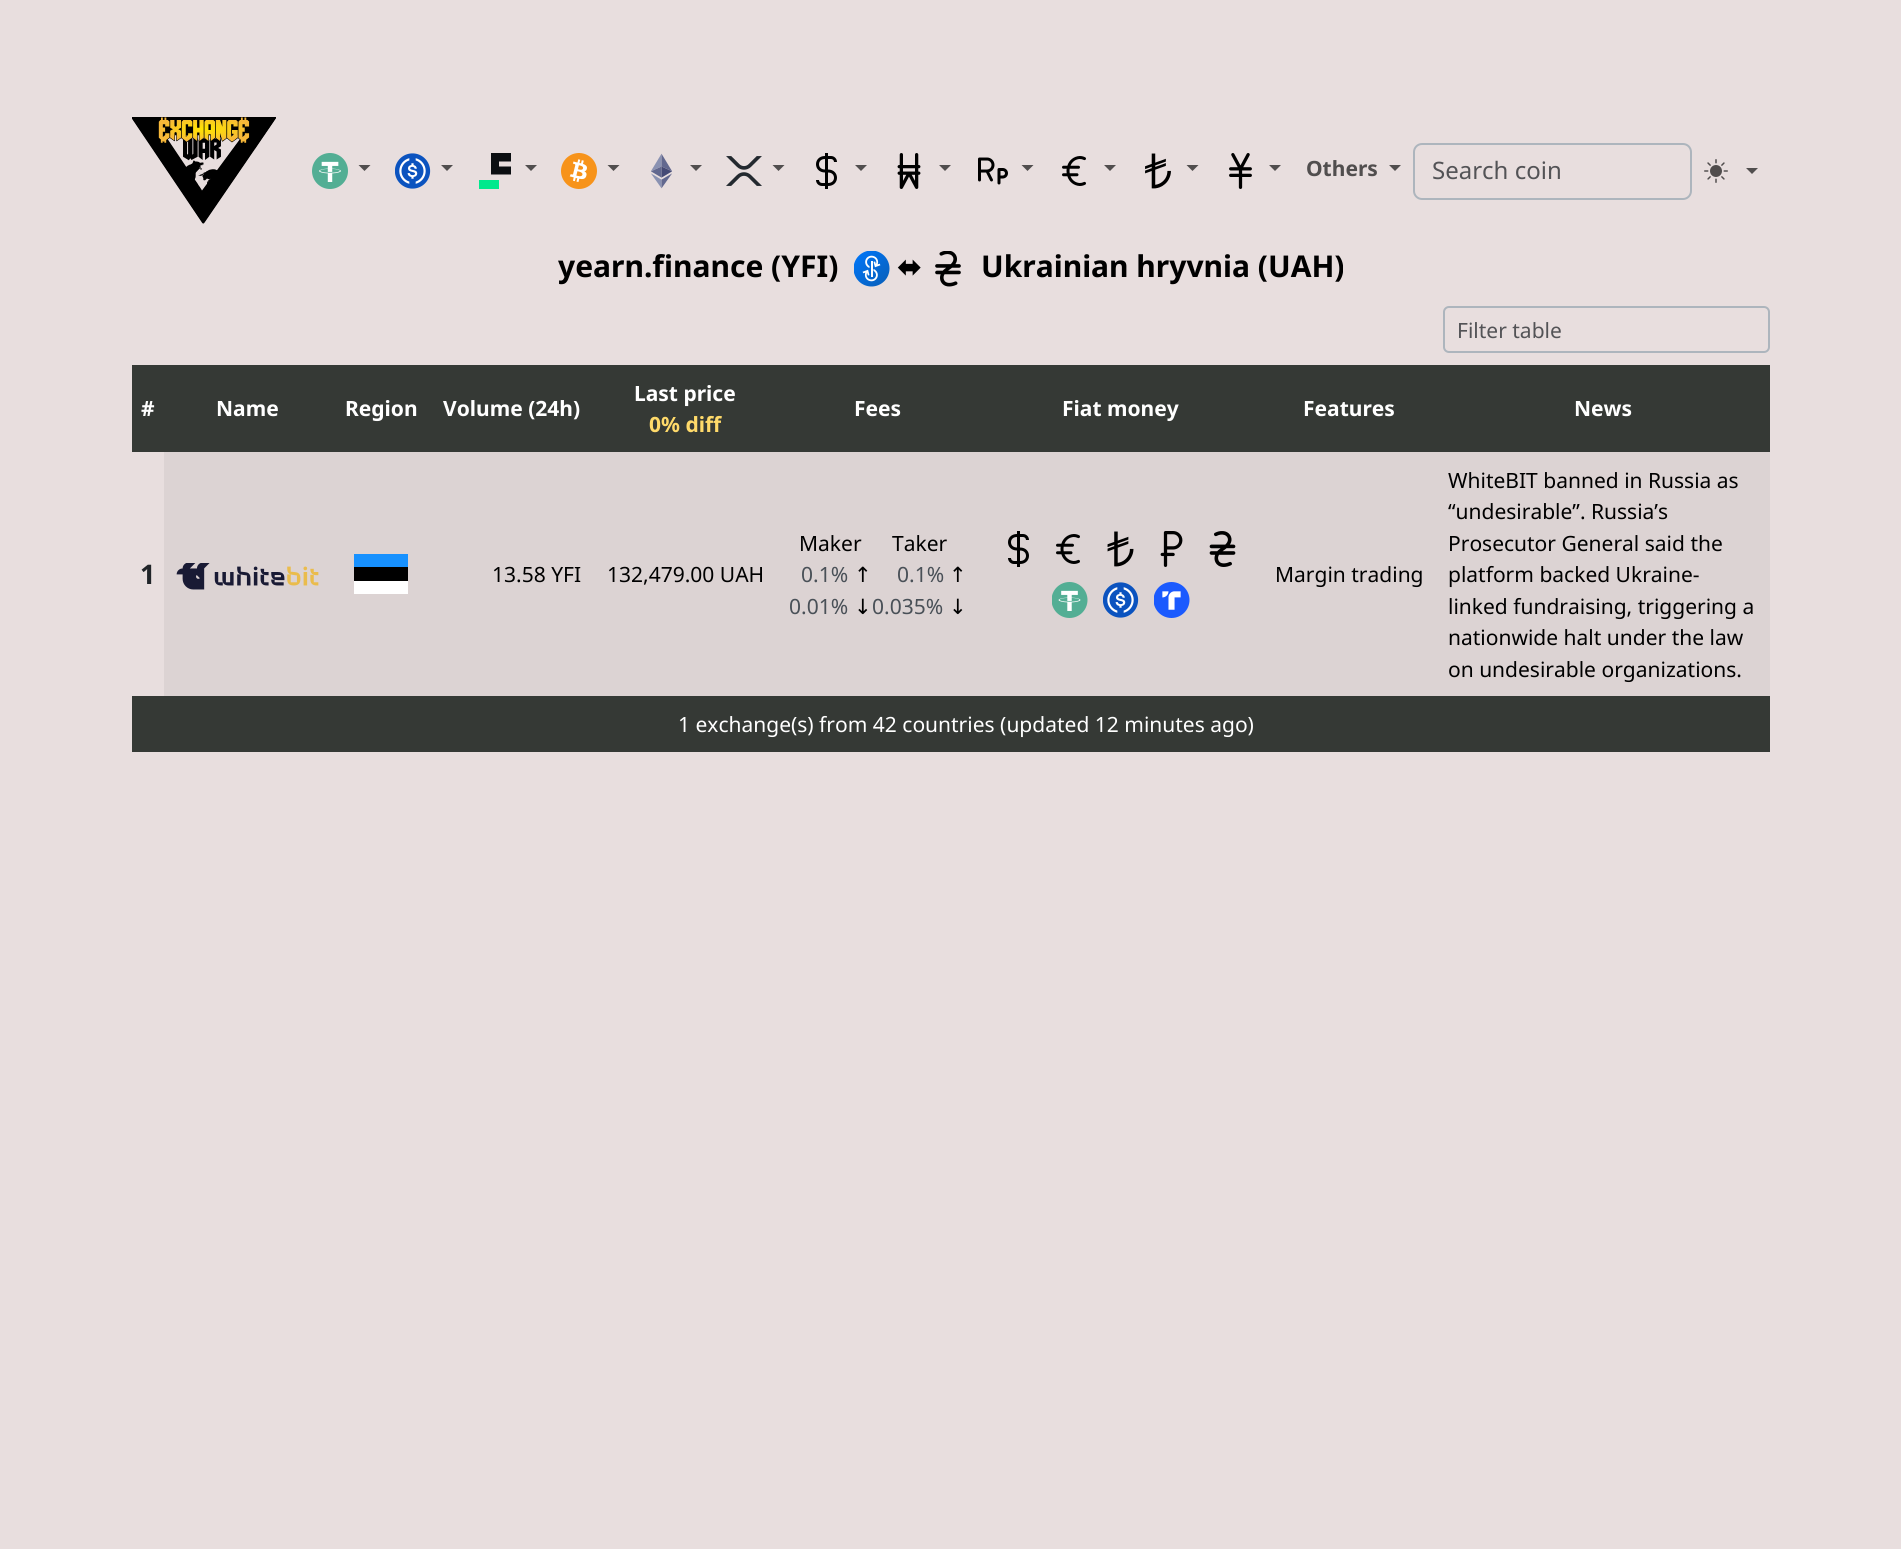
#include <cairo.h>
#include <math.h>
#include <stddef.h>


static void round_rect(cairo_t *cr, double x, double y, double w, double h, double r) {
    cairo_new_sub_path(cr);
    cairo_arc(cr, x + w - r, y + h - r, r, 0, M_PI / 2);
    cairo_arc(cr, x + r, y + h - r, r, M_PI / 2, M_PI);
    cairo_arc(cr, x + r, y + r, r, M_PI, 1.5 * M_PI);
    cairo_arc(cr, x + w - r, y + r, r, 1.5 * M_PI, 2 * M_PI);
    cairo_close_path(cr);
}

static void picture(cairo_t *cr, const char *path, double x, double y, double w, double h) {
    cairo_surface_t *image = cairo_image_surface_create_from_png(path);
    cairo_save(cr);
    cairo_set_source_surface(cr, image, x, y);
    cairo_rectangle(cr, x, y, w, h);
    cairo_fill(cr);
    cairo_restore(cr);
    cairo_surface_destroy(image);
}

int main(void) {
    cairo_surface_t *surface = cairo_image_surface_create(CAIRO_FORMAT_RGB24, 1901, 1549);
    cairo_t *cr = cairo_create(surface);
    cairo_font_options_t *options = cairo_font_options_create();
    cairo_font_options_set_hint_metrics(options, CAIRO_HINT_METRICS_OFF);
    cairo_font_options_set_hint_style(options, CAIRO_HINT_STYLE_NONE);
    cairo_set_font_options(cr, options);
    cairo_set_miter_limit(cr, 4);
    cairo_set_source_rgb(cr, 0.91, 0.871, 0.871);
    cairo_paint(cr);
    picture(cr, "img1.png", 132, 117, 144, 107);
    picture(cr, "img2.png", 312, 153, 36, 36);
    cairo_set_source_rgb(cr, 0.318, 0.306, 0.306);
    cairo_new_path(cr);
    cairo_move_to(cr, 358.5, 165);
    cairo_line_to(cr, 370.5, 165);
    cairo_line_to(cr, 364.5, 171);
    cairo_close_path(cr);
    cairo_fill(cr);
    picture(cr, "img3.png", 395, 153, 36, 36);
    cairo_new_path(cr);
    cairo_move_to(cr, 441, 165);
    cairo_line_to(cr, 453, 165);
    cairo_line_to(cr, 447, 171);
    cairo_close_path(cr);
    cairo_fill(cr);
    cairo_set_source_rgb(cr, 0.043, 0.055, 0.067);
    cairo_new_path(cr);
    cairo_move_to(cr, 511, 153);
    cairo_line_to(cr, 511, 161.5);
    cairo_line_to(cr, 499, 161.5);
    cairo_line_to(cr, 499, 166.5);
    cairo_line_to(cr, 511, 166.5);
    cairo_line_to(cr, 511, 174.5);
    cairo_line_to(cr, 491, 174.5);
    cairo_line_to(cr, 491, 153);
    cairo_close_path(cr);
    cairo_fill(cr);
    cairo_set_source_rgb(cr, 0.318, 0.306, 0.306);
    cairo_new_path(cr);
    cairo_move_to(cr, 525, 165);
    cairo_line_to(cr, 537, 165);
    cairo_line_to(cr, 531, 171);
    cairo_close_path(cr);
    cairo_fill(cr);
    cairo_set_source_rgb(cr, 0, 0.914, 0.553);
    cairo_rectangle(cr, 479, 180, 20, 9);
    cairo_fill(cr);
    picture(cr, "img4.png", 561, 153, 36, 36);
    cairo_set_source_rgb(cr, 0.318, 0.306, 0.306);
    cairo_new_path(cr);
    cairo_move_to(cr, 607.5, 165);
    cairo_line_to(cr, 619.5, 165);
    cairo_line_to(cr, 613.5, 171);
    cairo_close_path(cr);
    cairo_fill(cr);
    picture(cr, "img5.png", 651, 153, 21, 36);
    cairo_new_path(cr);
    cairo_move_to(cr, 690, 165);
    cairo_line_to(cr, 702, 165);
    cairo_line_to(cr, 696, 171);
    cairo_close_path(cr);
    cairo_fill(cr);
    picture(cr, "img6.png", 726, 156, 36, 30);
    cairo_new_path(cr);
    cairo_move_to(cr, 772.5, 165);
    cairo_line_to(cr, 784.5, 165);
    cairo_line_to(cr, 778.5, 171);
    cairo_close_path(cr);
    cairo_fill(cr);
    picture(cr, "img7.png", 816, 153, 21, 36);
    cairo_new_path(cr);
    cairo_move_to(cr, 855, 165);
    cairo_line_to(cr, 867, 165);
    cairo_line_to(cr, 861, 171);
    cairo_close_path(cr);
    cairo_fill(cr);
    picture(cr, "img8.png", 897, 153, 24, 36);
    cairo_new_path(cr);
    cairo_move_to(cr, 939, 165);
    cairo_line_to(cr, 951, 165);
    cairo_line_to(cr, 945, 171);
    cairo_close_path(cr);
    cairo_fill(cr);
    picture(cr, "img9.png", 978, 157, 30, 28);
    cairo_new_path(cr);
    cairo_move_to(cr, 1021.5, 165);
    cairo_line_to(cr, 1033.5, 165);
    cairo_line_to(cr, 1027.5, 171);
    cairo_close_path(cr);
    cairo_fill(cr);
    picture(cr, "img10.png", 1062, 156, 24, 30);
    cairo_new_path(cr);
    cairo_move_to(cr, 1104, 165);
    cairo_line_to(cr, 1116, 165);
    cairo_line_to(cr, 1110, 171);
    cairo_close_path(cr);
    cairo_fill(cr);
    picture(cr, "img11.png", 1145, 153, 26, 36);
    cairo_new_path(cr);
    cairo_move_to(cr, 1186.5, 165);
    cairo_line_to(cr, 1198.5, 165);
    cairo_line_to(cr, 1192.5, 171);
    cairo_close_path(cr);
    cairo_fill(cr);
    picture(cr, "img12.png", 1229, 153, 23, 36);
    cairo_new_path(cr);
    cairo_move_to(cr, 1269, 165);
    cairo_line_to(cr, 1281, 165);
    cairo_line_to(cr, 1275, 171);
    cairo_close_path(cr);
    cairo_fill(cr);
    cairo_select_font_face(cr, "Noto Sans", CAIRO_FONT_SLANT_NORMAL, CAIRO_FONT_WEIGHT_BOLD);
    cairo_set_font_size(cr, 21);
    cairo_move_to(cr, 1306, 176);
    cairo_show_text(cr, "Others");
    cairo_new_path(cr);
    cairo_move_to(cr, 1389, 165);
    cairo_line_to(cr, 1401, 165);
    cairo_line_to(cr, 1395, 171);
    cairo_close_path(cr);
    cairo_fill(cr);
    round_rect(cr, 1414, 144, 277, 55, 8);
    cairo_set_source_rgb(cr, 0.678, 0.71, 0.741);
    cairo_stroke(cr);
    cairo_select_font_face(cr, "Noto Sans", CAIRO_FONT_SLANT_NORMAL, CAIRO_FONT_WEIGHT_NORMAL);
    cairo_set_font_size(cr, 24);
    cairo_set_source_rgb(cr, 0.325, 0.325, 0.337);
    cairo_move_to(cr, 1432, 179);
    cairo_show_text(cr, "Search coin");
    picture(cr, "img13.png", 1704, 159, 24, 24);
    cairo_set_source_rgb(cr, 0.318, 0.306, 0.306);
    cairo_new_path(cr);
    cairo_move_to(cr, 1746, 168);
    cairo_line_to(cr, 1758, 168);
    cairo_line_to(cr, 1752, 174);
    cairo_close_path(cr);
    cairo_fill(cr);
    cairo_select_font_face(cr, "Noto Sans", CAIRO_FONT_SLANT_NORMAL, CAIRO_FONT_WEIGHT_BOLD);
    cairo_set_font_size(cr, 30);
    cairo_set_source_rgb(cr, 0, 0, 0);
    cairo_move_to(cr, 558, 277);
    cairo_show_text(cr, "yearn.finance (YFI)");
    picture(cr, "img14.png", 854, 251, 36, 36);
    cairo_select_font_face(cr, "DejaVu Sans", CAIRO_FONT_SLANT_NORMAL, CAIRO_FONT_WEIGHT_BOLD);
    cairo_move_to(cr, 897, 277);
    cairo_show_text(cr, "⬌");
    picture(cr, "img15.png", 935, 251, 26, 36);
    cairo_select_font_face(cr, "Noto Sans", CAIRO_FONT_SLANT_NORMAL, CAIRO_FONT_WEIGHT_BOLD);
    cairo_move_to(cr, 981, 277);
    cairo_show_text(cr, "Ukrainian hryvnia (UAH)");
    round_rect(cr, 1444, 307, 325, 45, 5);
    cairo_set_source_rgb(cr, 0.678, 0.71, 0.741);
    cairo_stroke(cr);
    cairo_select_font_face(cr, "Noto Sans", CAIRO_FONT_SLANT_NORMAL, CAIRO_FONT_WEIGHT_NORMAL);
    cairo_set_font_size(cr, 21);
    cairo_set_source_rgb(cr, 0.325, 0.325, 0.337);
    cairo_move_to(cr, 1457, 338);
    cairo_show_text(cr, "Filter table");
    cairo_set_source_rgb(cr, 0.208, 0.224, 0.208);
    cairo_rectangle(cr, 132, 365, 1638, 87);
    cairo_fill(cr);
    cairo_select_font_face(cr, "Noto Sans", CAIRO_FONT_SLANT_NORMAL, CAIRO_FONT_WEIGHT_BOLD);
    cairo_set_source_rgb(cr, 1, 1, 1);
    cairo_move_to(cr, 141, 416);
    cairo_show_text(cr, "#");
    cairo_move_to(cr, 216, 416);
    cairo_show_text(cr, "Name");
    cairo_move_to(cr, 345, 416);
    cairo_show_text(cr, "Region");
    cairo_move_to(cr, 443, 416);
    cairo_show_text(cr, "Volume (24h)");
    cairo_move_to(cr, 634, 401);
    cairo_show_text(cr, "Last price");
    cairo_set_source_rgb(cr, 1, 0.855, 0.416);
    cairo_move_to(cr, 649, 432);
    cairo_show_text(cr, "0% diff");
    cairo_set_source_rgb(cr, 1, 1, 1);
    cairo_move_to(cr, 854, 416);
    cairo_show_text(cr, "Fees");
    cairo_move_to(cr, 1062, 416);
    cairo_show_text(cr, "Fiat money");
    cairo_move_to(cr, 1303, 416);
    cairo_show_text(cr, "Features");
    cairo_move_to(cr, 1574, 416);
    cairo_show_text(cr, "News");
    cairo_set_source_rgb(cr, 0.863, 0.827, 0.827);
    cairo_rectangle(cr, 164, 452, 1606, 244);
    cairo_fill(cr);
    picture(cr, "img16.png", 176, 563, 143, 27);
    cairo_set_font_size(cr, 27);
    cairo_set_source_rgb(cr, 0.129, 0.145, 0.161);
    cairo_move_to(cr, 140, 584);
    cairo_show_text(cr, "1");
    cairo_set_source_rgb(cr, 0.09, 0.569, 1);
    cairo_rectangle(cr, 354, 554, 54, 13);
    cairo_fill(cr);
    cairo_set_source_rgb(cr, 0, 0, 0);
    cairo_rectangle(cr, 354, 567, 54, 14);
    cairo_fill(cr);
    cairo_set_source_rgb(cr, 1, 1, 1);
    cairo_rectangle(cr, 354, 581, 54, 13);
    cairo_fill(cr);
    cairo_select_font_face(cr, "Noto Sans", CAIRO_FONT_SLANT_NORMAL, CAIRO_FONT_WEIGHT_NORMAL);
    cairo_set_font_size(cr, 21);
    cairo_set_source_rgb(cr, 0, 0, 0);
    cairo_move_to(cr, 492, 582);
    cairo_show_text(cr, "13.58 YFI");
    cairo_move_to(cr, 607, 582);
    cairo_show_text(cr, "132,479.00 UAH");
    cairo_move_to(cr, 799, 551);
    cairo_show_text(cr, "Maker");
    cairo_set_source_rgb(cr, 0.286, 0.314, 0.341);
    cairo_move_to(cr, 801, 582);
    cairo_show_text(cr, "0.1%");
    cairo_select_font_face(cr, "DejaVu Sans", CAIRO_FONT_SLANT_NORMAL, CAIRO_FONT_WEIGHT_NORMAL);
    cairo_set_source_rgb(cr, 0, 0, 0);
    cairo_move_to(cr, 854, 582);
    cairo_show_text(cr, "↑");
    cairo_select_font_face(cr, "Noto Sans", CAIRO_FONT_SLANT_NORMAL, CAIRO_FONT_WEIGHT_NORMAL);
    cairo_set_source_rgb(cr, 0.286, 0.314, 0.341);
    cairo_move_to(cr, 789, 614);
    cairo_show_text(cr, "0.01%");
    cairo_select_font_face(cr, "DejaVu Sans", CAIRO_FONT_SLANT_NORMAL, CAIRO_FONT_WEIGHT_NORMAL);
    cairo_set_source_rgb(cr, 0, 0, 0);
    cairo_move_to(cr, 854, 614);
    cairo_show_text(cr, "↓");
    cairo_select_font_face(cr, "Noto Sans", CAIRO_FONT_SLANT_NORMAL, CAIRO_FONT_WEIGHT_NORMAL);
    cairo_move_to(cr, 892, 551);
    cairo_show_text(cr, "Taker");
    cairo_set_source_rgb(cr, 0.286, 0.314, 0.341);
    cairo_move_to(cr, 897, 582);
    cairo_show_text(cr, "0.1%");
    cairo_select_font_face(cr, "DejaVu Sans", CAIRO_FONT_SLANT_NORMAL, CAIRO_FONT_WEIGHT_NORMAL);
    cairo_set_source_rgb(cr, 0, 0, 0);
    cairo_move_to(cr, 949, 582);
    cairo_show_text(cr, "↑");
    cairo_select_font_face(cr, "Noto Sans", CAIRO_FONT_SLANT_NORMAL, CAIRO_FONT_WEIGHT_NORMAL);
    cairo_set_source_rgb(cr, 0.286, 0.314, 0.341);
    cairo_move_to(cr, 872, 614);
    cairo_show_text(cr, "0.035%");
    cairo_select_font_face(cr, "DejaVu Sans", CAIRO_FONT_SLANT_NORMAL, CAIRO_FONT_WEIGHT_NORMAL);
    cairo_set_source_rgb(cr, 0, 0, 0);
    cairo_move_to(cr, 949, 614);
    cairo_show_text(cr, "↓");
    picture(cr, "img17.png", 1008, 531, 21, 36);
    picture(cr, "img18.png", 1056, 534, 24, 30);
    picture(cr, "img19.png", 1107, 531, 27, 36);
    picture(cr, "img20.png", 1160, 531, 23, 36);
    picture(cr, "img21.png", 1209, 531, 27, 36);
    picture(cr, "img22.png", 1052, 582, 36, 36);
    picture(cr, "img23.png", 1103, 582, 36, 36);
    picture(cr, "img24.png", 1154, 582, 36, 36);
    cairo_select_font_face(cr, "Noto Sans", CAIRO_FONT_SLANT_NORMAL, CAIRO_FONT_WEIGHT_NORMAL);
    cairo_move_to(cr, 1275, 582);
    cairo_show_text(cr, "Margin trading");
    cairo_move_to(cr, 1448, 488);
    cairo_show_text(cr, "WhiteBIT banned in Russia as");
    cairo_move_to(cr, 1448, 519);
    cairo_show_text(cr, "“undesirable”. Russia’s");
    cairo_move_to(cr, 1448, 551);
    cairo_show_text(cr, "Prosecutor General said the");
    cairo_move_to(cr, 1448, 582);
    cairo_show_text(cr, "platform backed Ukraine-");
    cairo_move_to(cr, 1448, 614);
    cairo_show_text(cr, "linked fundraising, triggering a");
    cairo_move_to(cr, 1448, 645);
    cairo_show_text(cr, "nationwide halt under the law");
    cairo_move_to(cr, 1448, 677);
    cairo_show_text(cr, "on undesirable organizations.");
    cairo_set_source_rgb(cr, 0.208, 0.224, 0.208);
    cairo_rectangle(cr, 132, 696, 1638, 56);
    cairo_fill(cr);
    cairo_set_source_rgb(cr, 1, 1, 1);
    cairo_move_to(cr, 678, 732);
    cairo_show_text(cr, "1 exchange(s) from 42 countries (updated 12 minutes ago)");
    cairo_surface_write_to_png(surface, "page.png");
    cairo_font_options_destroy(options);
    cairo_destroy(cr);
    cairo_surface_destroy(surface);
    return 0;
}
